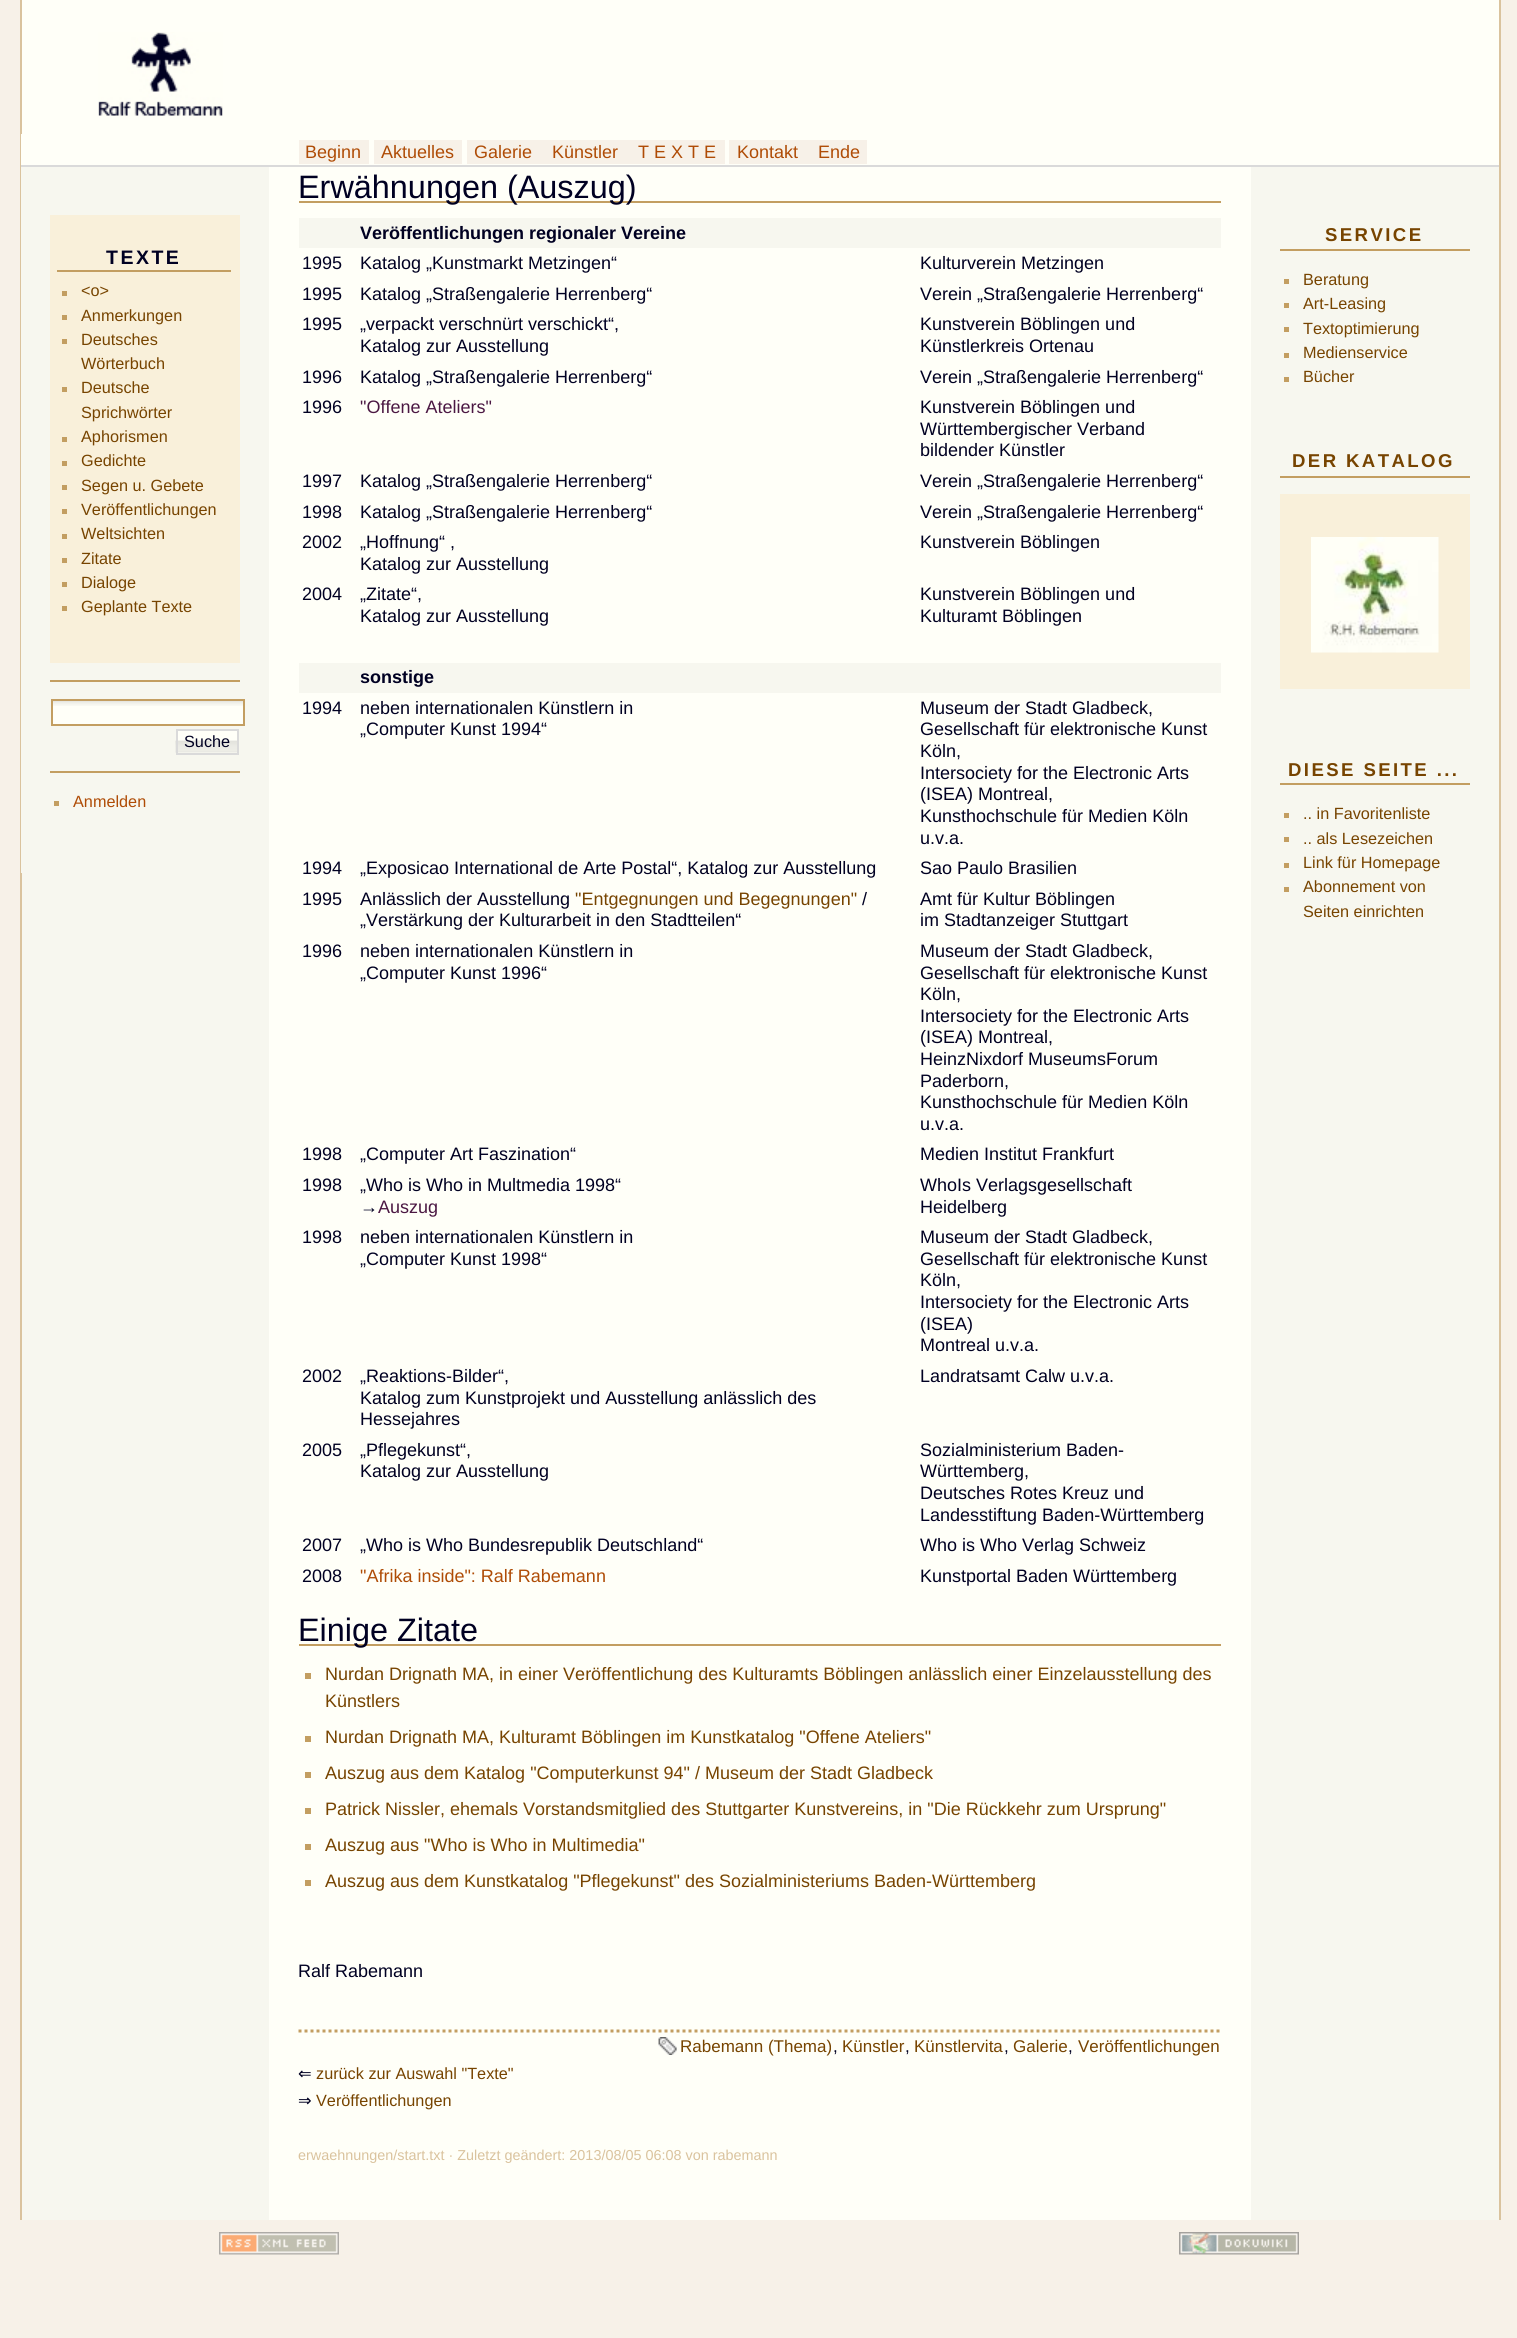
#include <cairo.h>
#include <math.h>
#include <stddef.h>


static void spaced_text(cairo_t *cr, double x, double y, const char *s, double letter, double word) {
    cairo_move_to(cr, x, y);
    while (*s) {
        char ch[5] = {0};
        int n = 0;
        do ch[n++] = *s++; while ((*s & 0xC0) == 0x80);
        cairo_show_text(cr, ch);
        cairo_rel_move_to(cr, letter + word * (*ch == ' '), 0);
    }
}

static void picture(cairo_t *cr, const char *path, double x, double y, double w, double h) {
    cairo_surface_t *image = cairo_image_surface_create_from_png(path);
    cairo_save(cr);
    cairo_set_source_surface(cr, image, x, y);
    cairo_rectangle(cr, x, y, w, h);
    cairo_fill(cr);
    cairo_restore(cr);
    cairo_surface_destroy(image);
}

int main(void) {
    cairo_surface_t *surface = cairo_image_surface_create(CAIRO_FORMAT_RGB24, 1517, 2338);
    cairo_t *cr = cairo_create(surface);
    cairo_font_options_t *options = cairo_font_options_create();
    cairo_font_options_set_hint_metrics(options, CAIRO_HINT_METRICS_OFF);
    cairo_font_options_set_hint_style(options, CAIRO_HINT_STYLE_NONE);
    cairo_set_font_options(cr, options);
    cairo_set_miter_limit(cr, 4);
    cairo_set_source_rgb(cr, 0.965, 0.945, 0.91);
    cairo_paint(cr);
    cairo_set_source_rgb(cr, 1, 1, 0.969);
    cairo_rectangle(cr, 22, 0, 1477, 134);
    cairo_fill(cr);
    picture(cr, "img1.png", 98, 32, 125, 84);
    cairo_set_source_rgb(cr, 0.855, 0.765, 0.62);
    cairo_rectangle(cr, 1499, 0, 2, 2220);
    cairo_fill(cr);
    cairo_rectangle(cr, 20, 0, 2, 2220);
    cairo_fill(cr);
    cairo_set_source_rgb(cr, 0.965, 0.965, 0.937);
    cairo_rectangle(cr, 22, 167, 1477, 2053);
    cairo_fill(cr);
    cairo_set_source_rgb(cr, 1, 1, 0.969);
    cairo_rectangle(cr, 21, 134, 1478, 31);
    cairo_fill(cr);
    cairo_set_source_rgb(cr, 0.855, 0.855, 0.855);
    cairo_rectangle(cr, 21, 165, 1478, 2);
    cairo_fill(cr);
    cairo_set_source_rgb(cr, 0.965, 0.945, 0.91);
    cairo_rectangle(cr, 299, 140, 70, 24);
    cairo_fill(cr);
    cairo_select_font_face(cr, "Liberation Sans", CAIRO_FONT_SLANT_NORMAL, CAIRO_FONT_WEIGHT_NORMAL);
    cairo_set_font_size(cr, 18);
    cairo_set_source_rgb(cr, 0.686, 0.298, 0.027);
    cairo_move_to(cr, 305, 158);
    cairo_show_text(cr, "Beginn");
    cairo_set_source_rgb(cr, 0.965, 0.945, 0.91);
    cairo_rectangle(cr, 374, 140, 88, 24);
    cairo_fill(cr);
    cairo_set_source_rgb(cr, 0.686, 0.298, 0.027);
    cairo_move_to(cr, 381, 158);
    cairo_show_text(cr, "Aktuelles");
    cairo_set_source_rgb(cr, 0.965, 0.945, 0.91);
    cairo_rectangle(cr, 467, 140, 258, 24);
    cairo_fill(cr);
    cairo_set_source_rgb(cr, 0.686, 0.298, 0.027);
    cairo_move_to(cr, 474, 158);
    cairo_show_text(cr, "Galerie");
    cairo_move_to(cr, 552, 158);
    cairo_show_text(cr, "Künstler");
    cairo_move_to(cr, 638, 158);
    cairo_show_text(cr, "T E X T E");
    cairo_set_source_rgb(cr, 0.965, 0.945, 0.91);
    cairo_rectangle(cr, 729, 140, 138, 24);
    cairo_fill(cr);
    cairo_set_source_rgb(cr, 0.686, 0.298, 0.027);
    cairo_move_to(cr, 737, 158);
    cairo_show_text(cr, "Kontakt");
    cairo_move_to(cr, 818, 158);
    cairo_show_text(cr, "Ende");
    cairo_set_source_rgb(cr, 0.965, 0.965, 0.937);
    cairo_rectangle(cr, 21, 167, 1, 706);
    cairo_fill(cr);
    cairo_set_source_rgb(cr, 0.973, 0.941, 0.855);
    cairo_rectangle(cr, 50, 215, 190, 448);
    cairo_fill(cr);
    cairo_set_source_rgb(cr, 0.765, 0.62, 0.38);
    cairo_rectangle(cr, 57, 270, 174, 2);
    cairo_fill(cr);
    cairo_select_font_face(cr, "Liberation Sans", CAIRO_FONT_SLANT_NORMAL, CAIRO_FONT_WEIGHT_BOLD);
    cairo_set_font_size(cr, 19.5);
    cairo_set_source_rgb(cr, 0, 0, 0.133);
    spaced_text(cr, 106, 264, "TEXTE", 2.5, 0);
    cairo_set_source_rgb(cr, 0.765, 0.62, 0.38);
    cairo_rectangle(cr, 62, 291, 5, 5);
    cairo_fill(cr);
    cairo_select_font_face(cr, "Liberation Sans", CAIRO_FONT_SLANT_NORMAL, CAIRO_FONT_WEIGHT_NORMAL);
    cairo_set_font_size(cr, 16.25);
    cairo_set_source_rgb(cr, 0.467, 0.267, 0);
    cairo_move_to(cr, 81, 296);
    cairo_show_text(cr, "<o>");
    cairo_set_source_rgb(cr, 0.765, 0.62, 0.38);
    cairo_rectangle(cr, 62, 315, 5, 5);
    cairo_fill(cr);
    cairo_set_source_rgb(cr, 0.467, 0.267, 0);
    cairo_move_to(cr, 81, 321);
    cairo_show_text(cr, "Anmerkungen");
    cairo_set_source_rgb(cr, 0.765, 0.62, 0.38);
    cairo_rectangle(cr, 62, 339, 5, 5);
    cairo_fill(cr);
    cairo_set_source_rgb(cr, 0.467, 0.267, 0);
    cairo_move_to(cr, 81, 345);
    cairo_show_text(cr, "Deutsches");
    cairo_move_to(cr, 81, 369);
    cairo_show_text(cr, "Wörterbuch");
    cairo_set_source_rgb(cr, 0.765, 0.62, 0.38);
    cairo_rectangle(cr, 62, 387, 5, 5);
    cairo_fill(cr);
    cairo_set_source_rgb(cr, 0.467, 0.267, 0);
    cairo_move_to(cr, 81, 393);
    cairo_show_text(cr, "Deutsche");
    cairo_move_to(cr, 81, 418);
    cairo_show_text(cr, "Sprichwörter");
    cairo_set_source_rgb(cr, 0.765, 0.62, 0.38);
    cairo_rectangle(cr, 62, 437, 5, 5);
    cairo_fill(cr);
    cairo_set_source_rgb(cr, 0.467, 0.267, 0);
    cairo_move_to(cr, 81, 442);
    cairo_show_text(cr, "Aphorismen");
    cairo_set_source_rgb(cr, 0.765, 0.62, 0.38);
    cairo_rectangle(cr, 62, 461, 5, 5);
    cairo_fill(cr);
    cairo_set_source_rgb(cr, 0.467, 0.267, 0);
    cairo_move_to(cr, 81, 466);
    cairo_show_text(cr, "Gedichte");
    cairo_set_source_rgb(cr, 0.765, 0.62, 0.38);
    cairo_rectangle(cr, 62, 485, 5, 5);
    cairo_fill(cr);
    cairo_set_source_rgb(cr, 0.467, 0.267, 0);
    cairo_move_to(cr, 81, 491);
    cairo_show_text(cr, "Segen u. Gebete");
    cairo_set_source_rgb(cr, 0.765, 0.62, 0.38);
    cairo_rectangle(cr, 62, 509, 5, 5);
    cairo_fill(cr);
    cairo_set_source_rgb(cr, 0.467, 0.267, 0);
    cairo_move_to(cr, 81, 515);
    cairo_show_text(cr, "Veröffentlichungen");
    cairo_set_source_rgb(cr, 0.765, 0.62, 0.38);
    cairo_rectangle(cr, 62, 534, 5, 5);
    cairo_fill(cr);
    cairo_set_source_rgb(cr, 0.467, 0.267, 0);
    cairo_move_to(cr, 81, 539);
    cairo_show_text(cr, "Weltsichten");
    cairo_set_source_rgb(cr, 0.765, 0.62, 0.38);
    cairo_rectangle(cr, 62, 558, 5, 5);
    cairo_fill(cr);
    cairo_set_source_rgb(cr, 0.467, 0.267, 0);
    cairo_move_to(cr, 81, 564);
    cairo_show_text(cr, "Zitate");
    cairo_set_source_rgb(cr, 0.765, 0.62, 0.38);
    cairo_rectangle(cr, 62, 582, 5, 5);
    cairo_fill(cr);
    cairo_set_source_rgb(cr, 0.467, 0.267, 0);
    cairo_move_to(cr, 81, 588);
    cairo_show_text(cr, "Dialoge");
    cairo_set_source_rgb(cr, 0.765, 0.62, 0.38);
    cairo_rectangle(cr, 62, 606, 5, 5);
    cairo_fill(cr);
    cairo_set_source_rgb(cr, 0.467, 0.267, 0);
    cairo_move_to(cr, 81, 612);
    cairo_show_text(cr, "Geplante Texte");
    cairo_set_source_rgb(cr, 0.765, 0.62, 0.38);
    cairo_rectangle(cr, 50, 680, 190, 2);
    cairo_fill(cr);
    cairo_set_source_rgb(cr, 1, 1, 0.969);
    cairo_rectangle(cr, 53, 701, 190, 23);
    cairo_fill(cr);
    picture(cr, "img2.png", 53, 701, 190, 5);
    cairo_rectangle(cr, 52, 700, 192, 25);
    cairo_set_source_rgb(cr, 0.765, 0.62, 0.38);
    cairo_stroke(cr);
    cairo_set_source_rgb(cr, 1, 1, 0.969);
    cairo_rectangle(cr, 178, 731, 59, 22);
    cairo_fill(cr);
    picture(cr, "img3.png", 175, 740, 62, 13);
    cairo_rectangle(cr, 177, 730, 61, 24);
    cairo_set_source_rgb(cr, 0.855, 0.855, 0.855);
    cairo_stroke(cr);
    cairo_set_source_rgb(cr, 0, 0, 0.133);
    cairo_move_to(cr, 184, 747);
    cairo_show_text(cr, "Suche");
    cairo_set_source_rgb(cr, 0.765, 0.62, 0.38);
    cairo_rectangle(cr, 50, 771, 190, 2);
    cairo_fill(cr);
    cairo_rectangle(cr, 54, 801, 5, 5);
    cairo_fill(cr);
    cairo_set_source_rgb(cr, 0.686, 0.298, 0.027);
    cairo_move_to(cr, 73, 807);
    cairo_show_text(cr, "Anmelden");
    cairo_set_source_rgb(cr, 1, 1, 0.969);
    cairo_rectangle(cr, 269, 167, 982, 2053);
    cairo_fill(cr);
    cairo_set_source_rgb(cr, 0.765, 0.62, 0.38);
    cairo_rectangle(cr, 299, 201, 922, 2);
    cairo_fill(cr);
    cairo_set_font_size(cr, 32.4);
    cairo_set_source_rgb(cr, 0, 0, 0.133);
    cairo_move_to(cr, 298, 198);
    cairo_show_text(cr, "Erwähnungen (Auszug)");
    cairo_set_source_rgb(cr, 0.965, 0.965, 0.937);
    cairo_rectangle(cr, 299, 218, 922, 30);
    cairo_fill(cr);
    cairo_select_font_face(cr, "Liberation Sans", CAIRO_FONT_SLANT_NORMAL, CAIRO_FONT_WEIGHT_BOLD);
    cairo_set_font_size(cr, 18);
    cairo_set_source_rgb(cr, 0, 0, 0.133);
    cairo_move_to(cr, 360, 239);
    cairo_show_text(cr, "Veröffentlichungen regionaler Vereine");
    cairo_select_font_face(cr, "Liberation Sans", CAIRO_FONT_SLANT_NORMAL, CAIRO_FONT_WEIGHT_NORMAL);
    cairo_move_to(cr, 302, 269);
    cairo_show_text(cr, "1995");
    cairo_move_to(cr, 360, 269);
    cairo_show_text(cr, "Katalog „Kunstmarkt Metzingen“");
    cairo_move_to(cr, 920, 269);
    cairo_show_text(cr, "Kulturverein Metzingen");
    cairo_move_to(cr, 302, 300);
    cairo_show_text(cr, "1995");
    cairo_move_to(cr, 360, 300);
    cairo_show_text(cr, "Katalog „Straßengalerie Herrenberg“");
    cairo_move_to(cr, 920, 300);
    cairo_show_text(cr, "Verein „Straßengalerie Herrenberg“");
    cairo_move_to(cr, 302, 330);
    cairo_show_text(cr, "1995");
    cairo_move_to(cr, 360, 330);
    cairo_show_text(cr, "„verpackt verschnürt verschickt“,");
    cairo_move_to(cr, 360, 352);
    cairo_show_text(cr, "Katalog zur Ausstellung");
    cairo_move_to(cr, 920, 330);
    cairo_show_text(cr, "Kunstverein Böblingen und");
    cairo_move_to(cr, 920, 352);
    cairo_show_text(cr, "Künstlerkreis Ortenau");
    cairo_move_to(cr, 302, 383);
    cairo_show_text(cr, "1996");
    cairo_move_to(cr, 360, 383);
    cairo_show_text(cr, "Katalog „Straßengalerie Herrenberg“");
    cairo_move_to(cr, 920, 383);
    cairo_show_text(cr, "Verein „Straßengalerie Herrenberg“");
    cairo_move_to(cr, 302, 413);
    cairo_show_text(cr, "1996");
    cairo_set_source_rgb(cr, 0.294, 0.094, 0.263);
    cairo_move_to(cr, 360, 413);
    cairo_show_text(cr, "\"Offene Ateliers\"");
    cairo_set_source_rgb(cr, 0, 0, 0.133);
    cairo_move_to(cr, 920, 413);
    cairo_show_text(cr, "Kunstverein Böblingen und");
    cairo_move_to(cr, 920, 435);
    cairo_show_text(cr, "Württembergischer Verband");
    cairo_move_to(cr, 920, 456);
    cairo_show_text(cr, "bildender Künstler");
    cairo_move_to(cr, 302, 487);
    cairo_show_text(cr, "1997");
    cairo_move_to(cr, 360, 487);
    cairo_show_text(cr, "Katalog „Straßengalerie Herrenberg“");
    cairo_move_to(cr, 920, 487);
    cairo_show_text(cr, "Verein „Straßengalerie Herrenberg“");
    cairo_move_to(cr, 302, 518);
    cairo_show_text(cr, "1998");
    cairo_move_to(cr, 360, 518);
    cairo_show_text(cr, "Katalog „Straßengalerie Herrenberg“");
    cairo_move_to(cr, 920, 518);
    cairo_show_text(cr, "Verein „Straßengalerie Herrenberg“");
    cairo_move_to(cr, 302, 548);
    cairo_show_text(cr, "2002");
    cairo_move_to(cr, 360, 548);
    cairo_show_text(cr, "„Hoffnung“ ,");
    cairo_move_to(cr, 360, 570);
    cairo_show_text(cr, "Katalog zur Ausstellung");
    cairo_move_to(cr, 920, 548);
    cairo_show_text(cr, "Kunstverein Böblingen");
    cairo_move_to(cr, 302, 600);
    cairo_show_text(cr, "2004");
    cairo_move_to(cr, 360, 600);
    cairo_show_text(cr, "„Zitate“,");
    cairo_move_to(cr, 360, 622);
    cairo_show_text(cr, "Katalog zur Ausstellung");
    cairo_move_to(cr, 920, 600);
    cairo_show_text(cr, "Kunstverein Böblingen und");
    cairo_move_to(cr, 920, 622);
    cairo_show_text(cr, "Kulturamt Böblingen");
    cairo_set_source_rgb(cr, 0.965, 0.965, 0.937);
    cairo_rectangle(cr, 299, 663, 922, 30);
    cairo_fill(cr);
    cairo_select_font_face(cr, "Liberation Sans", CAIRO_FONT_SLANT_NORMAL, CAIRO_FONT_WEIGHT_BOLD);
    cairo_set_source_rgb(cr, 0, 0, 0.133);
    cairo_move_to(cr, 360, 683);
    cairo_show_text(cr, "sonstige");
    cairo_select_font_face(cr, "Liberation Sans", CAIRO_FONT_SLANT_NORMAL, CAIRO_FONT_WEIGHT_NORMAL);
    cairo_move_to(cr, 302, 714);
    cairo_show_text(cr, "1994");
    cairo_move_to(cr, 360, 714);
    cairo_show_text(cr, "neben internationalen Künstlern in");
    cairo_move_to(cr, 360, 735);
    cairo_show_text(cr, "„Computer Kunst 1994“");
    cairo_move_to(cr, 920, 714);
    cairo_show_text(cr, "Museum der Stadt Gladbeck,");
    cairo_move_to(cr, 920, 735);
    cairo_show_text(cr, "Gesellschaft für elektronische Kunst");
    cairo_move_to(cr, 920, 757);
    cairo_show_text(cr, "Köln,");
    cairo_move_to(cr, 920, 779);
    cairo_show_text(cr, "Intersociety for the Electronic Arts");
    cairo_move_to(cr, 920, 800);
    cairo_show_text(cr, "(ISEA) Montreal,");
    cairo_move_to(cr, 920, 822);
    cairo_show_text(cr, "Kunsthochschule für Medien Köln");
    cairo_move_to(cr, 920, 844);
    cairo_show_text(cr, "u.v.a.");
    cairo_move_to(cr, 302, 874);
    cairo_show_text(cr, "1994");
    cairo_move_to(cr, 360, 874);
    cairo_show_text(cr, "„Exposicao International de Arte Postal“, Katalog zur Ausstellung");
    cairo_move_to(cr, 920, 874);
    cairo_show_text(cr, "Sao Paulo Brasilien");
    cairo_move_to(cr, 302, 905);
    cairo_show_text(cr, "1995");
    cairo_move_to(cr, 360, 905);
    cairo_show_text(cr, "Anlässlich der Ausstellung");
    cairo_set_source_rgb(cr, 0.467, 0.267, 0);
    cairo_move_to(cr, 575, 905);
    cairo_show_text(cr, "\"Entgegnungen und Begegnungen\"");
    cairo_set_source_rgb(cr, 0, 0, 0.133);
    cairo_move_to(cr, 862, 905);
    cairo_show_text(cr, "/");
    cairo_move_to(cr, 360, 926);
    cairo_show_text(cr, "„Verstärkung der Kulturarbeit in den Stadtteilen“");
    cairo_move_to(cr, 920, 905);
    cairo_show_text(cr, "Amt für Kultur Böblingen");
    cairo_move_to(cr, 920, 926);
    cairo_show_text(cr, "im Stadtanzeiger Stuttgart");
    cairo_move_to(cr, 302, 957);
    cairo_show_text(cr, "1996");
    cairo_move_to(cr, 360, 957);
    cairo_show_text(cr, "neben internationalen Künstlern in");
    cairo_move_to(cr, 360, 979);
    cairo_show_text(cr, "„Computer Kunst 1996“");
    cairo_move_to(cr, 920, 957);
    cairo_show_text(cr, "Museum der Stadt Gladbeck,");
    cairo_move_to(cr, 920, 979);
    cairo_show_text(cr, "Gesellschaft für elektronische Kunst");
    cairo_move_to(cr, 920, 1000);
    cairo_show_text(cr, "Köln,");
    cairo_move_to(cr, 920, 1022);
    cairo_show_text(cr, "Intersociety for the Electronic Arts");
    cairo_move_to(cr, 920, 1043);
    cairo_show_text(cr, "(ISEA) Montreal,");
    cairo_move_to(cr, 920, 1065);
    cairo_show_text(cr, "HeinzNixdorf MuseumsForum");
    cairo_move_to(cr, 920, 1087);
    cairo_show_text(cr, "Paderborn,");
    cairo_move_to(cr, 920, 1108);
    cairo_show_text(cr, "Kunsthochschule für Medien Köln");
    cairo_move_to(cr, 920, 1130);
    cairo_show_text(cr, "u.v.a.");
    cairo_move_to(cr, 302, 1160);
    cairo_show_text(cr, "1998");
    cairo_move_to(cr, 360, 1160);
    cairo_show_text(cr, "„Computer Art Faszination“");
    cairo_move_to(cr, 920, 1160);
    cairo_show_text(cr, "Medien Institut Frankfurt");
    cairo_move_to(cr, 302, 1191);
    cairo_show_text(cr, "1998");
    cairo_move_to(cr, 360, 1191);
    cairo_show_text(cr, "„Who is Who in Multmedia 1998“");
    cairo_move_to(cr, 360, 1213);
    cairo_show_text(cr, "→");
    cairo_set_source_rgb(cr, 0.294, 0.094, 0.263);
    cairo_move_to(cr, 378, 1213);
    cairo_show_text(cr, "Auszug");
    cairo_set_source_rgb(cr, 0, 0, 0.133);
    cairo_move_to(cr, 920, 1191);
    cairo_show_text(cr, "WhoIs Verlagsgesellschaft");
    cairo_move_to(cr, 920, 1213);
    cairo_show_text(cr, "Heidelberg");
    cairo_move_to(cr, 302, 1243);
    cairo_show_text(cr, "1998");
    cairo_move_to(cr, 360, 1243);
    cairo_show_text(cr, "neben internationalen Künstlern in");
    cairo_move_to(cr, 360, 1265);
    cairo_show_text(cr, "„Computer Kunst 1998“");
    cairo_move_to(cr, 920, 1243);
    cairo_show_text(cr, "Museum der Stadt Gladbeck,");
    cairo_move_to(cr, 920, 1265);
    cairo_show_text(cr, "Gesellschaft für elektronische Kunst");
    cairo_move_to(cr, 920, 1286);
    cairo_show_text(cr, "Köln,");
    cairo_move_to(cr, 920, 1308);
    cairo_show_text(cr, "Intersociety for the Electronic Arts");
    cairo_move_to(cr, 920, 1330);
    cairo_show_text(cr, "(ISEA)");
    cairo_move_to(cr, 920, 1351);
    cairo_show_text(cr, "Montreal u.v.a.");
    cairo_move_to(cr, 302, 1382);
    cairo_show_text(cr, "2002");
    cairo_move_to(cr, 360, 1382);
    cairo_show_text(cr, "„Reaktions-Bilder“,");
    cairo_move_to(cr, 360, 1404);
    cairo_show_text(cr, "Katalog zum Kunstprojekt und Ausstellung anlässlich des");
    cairo_move_to(cr, 360, 1425);
    cairo_show_text(cr, "Hessejahres");
    cairo_move_to(cr, 920, 1382);
    cairo_show_text(cr, "Landratsamt Calw u.v.a.");
    cairo_move_to(cr, 302, 1456);
    cairo_show_text(cr, "2005");
    cairo_move_to(cr, 360, 1456);
    cairo_show_text(cr, "„Pflegekunst“,");
    cairo_move_to(cr, 360, 1477);
    cairo_show_text(cr, "Katalog zur Ausstellung");
    cairo_move_to(cr, 920, 1456);
    cairo_show_text(cr, "Sozialministerium Baden-");
    cairo_move_to(cr, 920, 1477);
    cairo_show_text(cr, "Württemberg,");
    cairo_move_to(cr, 920, 1499);
    cairo_show_text(cr, "Deutsches Rotes Kreuz und");
    cairo_move_to(cr, 920, 1521);
    cairo_show_text(cr, "Landesstiftung Baden-Württemberg");
    cairo_move_to(cr, 302, 1551);
    cairo_show_text(cr, "2007");
    cairo_move_to(cr, 360, 1551);
    cairo_show_text(cr, "„Who is Who Bundesrepublik Deutschland“");
    cairo_move_to(cr, 920, 1551);
    cairo_show_text(cr, "Who is Who Verlag Schweiz");
    cairo_move_to(cr, 302, 1582);
    cairo_show_text(cr, "2008");
    cairo_set_source_rgb(cr, 0.686, 0.298, 0.027);
    cairo_move_to(cr, 360, 1582);
    cairo_show_text(cr, "\"Afrika inside\": Ralf Rabemann");
    cairo_set_source_rgb(cr, 0, 0, 0.133);
    cairo_move_to(cr, 920, 1582);
    cairo_show_text(cr, "Kunstportal Baden Württemberg");
    cairo_set_source_rgb(cr, 0.765, 0.62, 0.38);
    cairo_rectangle(cr, 299, 1644, 922, 2);
    cairo_fill(cr);
    cairo_set_font_size(cr, 32.4);
    cairo_set_source_rgb(cr, 0, 0, 0.133);
    cairo_move_to(cr, 298, 1641);
    cairo_show_text(cr, "Einige Zitate");
    cairo_set_source_rgb(cr, 0.765, 0.62, 0.38);
    cairo_rectangle(cr, 305, 1673, 6, 6);
    cairo_fill(cr);
    cairo_set_font_size(cr, 18);
    cairo_set_source_rgb(cr, 0.467, 0.267, 0);
    cairo_move_to(cr, 325, 1680);
    cairo_show_text(cr, "Nurdan Drignath MA, in einer Veröffentlichung des Kulturamts Böblingen anlässlich einer Einzelausstellung des");
    cairo_move_to(cr, 325, 1707);
    cairo_show_text(cr, "Künstlers");
    cairo_set_source_rgb(cr, 0.765, 0.62, 0.38);
    cairo_rectangle(cr, 305, 1736, 6, 6);
    cairo_fill(cr);
    cairo_set_source_rgb(cr, 0.467, 0.267, 0);
    cairo_move_to(cr, 325, 1743);
    cairo_show_text(cr, "Nurdan Drignath MA, Kulturamt Böblingen im Kunstkatalog \"Offene Ateliers\"");
    cairo_set_source_rgb(cr, 0.765, 0.62, 0.38);
    cairo_rectangle(cr, 305, 1772, 6, 6);
    cairo_fill(cr);
    cairo_set_source_rgb(cr, 0.467, 0.267, 0);
    cairo_move_to(cr, 325, 1779);
    cairo_show_text(cr, "Auszug aus dem Katalog \"Computerkunst 94\" / Museum der Stadt Gladbeck");
    cairo_set_source_rgb(cr, 0.765, 0.62, 0.38);
    cairo_rectangle(cr, 305, 1808, 6, 6);
    cairo_fill(cr);
    cairo_set_source_rgb(cr, 0.467, 0.267, 0);
    cairo_move_to(cr, 325, 1815);
    cairo_show_text(cr, "Patrick Nissler, ehemals Vorstandsmitglied des Stuttgarter Kunstvereins, in \"Die Rückkehr zum Ursprung\"");
    cairo_set_source_rgb(cr, 0.765, 0.62, 0.38);
    cairo_rectangle(cr, 305, 1844, 6, 6);
    cairo_fill(cr);
    cairo_set_source_rgb(cr, 0.467, 0.267, 0);
    cairo_move_to(cr, 325, 1851);
    cairo_show_text(cr, "Auszug aus \"Who is Who in Multimedia\"");
    cairo_set_source_rgb(cr, 0.765, 0.62, 0.38);
    cairo_rectangle(cr, 305, 1880, 6, 6);
    cairo_fill(cr);
    cairo_set_source_rgb(cr, 0.467, 0.267, 0);
    cairo_move_to(cr, 325, 1887);
    cairo_show_text(cr, "Auszug aus dem Kunstkatalog \"Pflegekunst\" des Sozialministeriums Baden-Württemberg");
    cairo_set_source_rgb(cr, 0, 0, 0.133);
    cairo_move_to(cr, 298, 1977);
    cairo_show_text(cr, "Ralf Rabemann");
    cairo_new_path(cr);
    cairo_move_to(cr, 298.5, 2031);
    cairo_line_to(cr, 1221, 2031);
    cairo_set_source_rgb(cr, 0.765, 0.62, 0.38);
    cairo_set_line_width(cr, 3);
    cairo_set_dash(cr, (double[]){3, 3}, 2, 0);
    cairo_stroke(cr);
    picture(cr, "img4.png", 658, 2037, 19, 18);
    cairo_set_font_size(cr, 17);
    cairo_set_source_rgb(cr, 0.467, 0.267, 0);
    cairo_move_to(cr, 680, 2052);
    cairo_show_text(cr, "Rabemann (Thema)");
    cairo_set_source_rgb(cr, 0, 0, 0.133);
    cairo_move_to(cr, 833, 2052);
    cairo_show_text(cr, ",");
    cairo_set_source_rgb(cr, 0.467, 0.267, 0);
    cairo_move_to(cr, 842, 2052);
    cairo_show_text(cr, "Künstler");
    cairo_set_source_rgb(cr, 0, 0, 0.133);
    cairo_move_to(cr, 905, 2052);
    cairo_show_text(cr, ",");
    cairo_set_source_rgb(cr, 0.467, 0.267, 0);
    cairo_move_to(cr, 914, 2052);
    cairo_show_text(cr, "Künstlervita");
    cairo_set_source_rgb(cr, 0, 0, 0.133);
    cairo_move_to(cr, 1004, 2052);
    cairo_show_text(cr, ",");
    cairo_set_source_rgb(cr, 0.467, 0.267, 0);
    cairo_move_to(cr, 1013, 2052);
    cairo_show_text(cr, "Galerie");
    cairo_set_source_rgb(cr, 0, 0, 0.133);
    cairo_move_to(cr, 1068, 2052);
    cairo_show_text(cr, ",");
    cairo_set_source_rgb(cr, 0.467, 0.267, 0);
    cairo_move_to(cr, 1078, 2052);
    cairo_show_text(cr, "Veröffentlichungen");
    cairo_select_font_face(cr, "DejaVu Sans", CAIRO_FONT_SLANT_NORMAL, CAIRO_FONT_WEIGHT_NORMAL);
    cairo_set_font_size(cr, 16.25);
    cairo_set_source_rgb(cr, 0, 0, 0.133);
    cairo_move_to(cr, 298, 2079);
    cairo_show_text(cr, "⇐");
    cairo_select_font_face(cr, "Liberation Sans", CAIRO_FONT_SLANT_NORMAL, CAIRO_FONT_WEIGHT_NORMAL);
    cairo_set_source_rgb(cr, 0.467, 0.267, 0);
    cairo_move_to(cr, 316, 2079);
    cairo_show_text(cr, "zurück zur Auswahl \"Texte\"");
    cairo_select_font_face(cr, "DejaVu Sans", CAIRO_FONT_SLANT_NORMAL, CAIRO_FONT_WEIGHT_NORMAL);
    cairo_set_source_rgb(cr, 0, 0, 0.133);
    cairo_move_to(cr, 298, 2106);
    cairo_show_text(cr, "⇒");
    cairo_select_font_face(cr, "Liberation Sans", CAIRO_FONT_SLANT_NORMAL, CAIRO_FONT_WEIGHT_NORMAL);
    cairo_set_source_rgb(cr, 0.467, 0.267, 0);
    cairo_move_to(cr, 316, 2106);
    cairo_show_text(cr, "Veröffentlichungen");
    cairo_set_font_size(cr, 14.4);
    cairo_set_source_rgb(cr, 0.855, 0.765, 0.62);
    cairo_move_to(cr, 298, 2160);
    cairo_show_text(cr, "erwaehnungen/start.txt · Zuletzt geändert: 2013/08/05 06:08 von rabemann");
    cairo_set_source_rgb(cr, 0.765, 0.62, 0.38);
    cairo_rectangle(cr, 1280, 249, 190, 2);
    cairo_fill(cr);
    cairo_select_font_face(cr, "Liberation Sans", CAIRO_FONT_SLANT_NORMAL, CAIRO_FONT_WEIGHT_BOLD);
    cairo_set_font_size(cr, 18.6);
    cairo_set_source_rgb(cr, 0.467, 0.267, 0);
    spaced_text(cr, 1325, 241, "SERVICE", 2.4, 0);
    cairo_set_source_rgb(cr, 0.765, 0.62, 0.38);
    cairo_rectangle(cr, 1284, 279, 5, 5);
    cairo_fill(cr);
    cairo_select_font_face(cr, "Liberation Sans", CAIRO_FONT_SLANT_NORMAL, CAIRO_FONT_WEIGHT_NORMAL);
    cairo_set_font_size(cr, 16.25);
    cairo_set_source_rgb(cr, 0.467, 0.267, 0);
    cairo_move_to(cr, 1303, 285);
    cairo_show_text(cr, "Beratung");
    cairo_set_source_rgb(cr, 0.765, 0.62, 0.38);
    cairo_rectangle(cr, 1284, 303, 5, 5);
    cairo_fill(cr);
    cairo_set_source_rgb(cr, 0.467, 0.267, 0);
    cairo_move_to(cr, 1303, 309);
    cairo_show_text(cr, "Art-Leasing");
    cairo_set_source_rgb(cr, 0.765, 0.62, 0.38);
    cairo_rectangle(cr, 1284, 327, 5, 5);
    cairo_fill(cr);
    cairo_set_source_rgb(cr, 0.467, 0.267, 0);
    cairo_move_to(cr, 1303, 334);
    cairo_show_text(cr, "Textoptimierung");
    cairo_set_source_rgb(cr, 0.765, 0.62, 0.38);
    cairo_rectangle(cr, 1284, 353, 5, 5);
    cairo_fill(cr);
    cairo_set_source_rgb(cr, 0.467, 0.267, 0);
    cairo_move_to(cr, 1303, 358);
    cairo_show_text(cr, "Medienservice");
    cairo_set_source_rgb(cr, 0.765, 0.62, 0.38);
    cairo_rectangle(cr, 1284, 377, 5, 5);
    cairo_fill(cr);
    cairo_set_source_rgb(cr, 0.467, 0.267, 0);
    cairo_move_to(cr, 1303, 382);
    cairo_show_text(cr, "Bücher");
    cairo_set_source_rgb(cr, 0.765, 0.62, 0.38);
    cairo_rectangle(cr, 1280, 476, 190, 2);
    cairo_fill(cr);
    cairo_select_font_face(cr, "Liberation Sans", CAIRO_FONT_SLANT_NORMAL, CAIRO_FONT_WEIGHT_BOLD);
    cairo_set_font_size(cr, 18.6);
    cairo_set_source_rgb(cr, 0.467, 0.267, 0);
    spaced_text(cr, 1292, 467, "DER KATALOG", 2.4, 0);
    cairo_set_source_rgb(cr, 0.973, 0.941, 0.855);
    cairo_rectangle(cr, 1280, 494, 190, 195);
    cairo_fill(cr);
    picture(cr, "img5.png", 1311, 537, 128, 116);
    cairo_set_source_rgb(cr, 0.765, 0.62, 0.38);
    cairo_rectangle(cr, 1280, 783, 190, 2);
    cairo_fill(cr);
    cairo_set_source_rgb(cr, 0.467, 0.267, 0);
    spaced_text(cr, 1288, 776, "DIESE SEITE ...", 2.4, 0);
    cairo_set_source_rgb(cr, 0.765, 0.62, 0.38);
    cairo_rectangle(cr, 1284, 813, 5, 5);
    cairo_fill(cr);
    cairo_select_font_face(cr, "Liberation Sans", CAIRO_FONT_SLANT_NORMAL, CAIRO_FONT_WEIGHT_NORMAL);
    cairo_set_font_size(cr, 16.25);
    cairo_set_source_rgb(cr, 0.467, 0.267, 0);
    cairo_move_to(cr, 1303, 819);
    cairo_show_text(cr, ".. in Favoritenliste");
    cairo_set_source_rgb(cr, 0.765, 0.62, 0.38);
    cairo_rectangle(cr, 1284, 837, 5, 5);
    cairo_fill(cr);
    cairo_set_source_rgb(cr, 0.467, 0.267, 0);
    cairo_move_to(cr, 1303, 844);
    cairo_show_text(cr, ".. als Lesezeichen");
    cairo_set_source_rgb(cr, 0.765, 0.62, 0.38);
    cairo_rectangle(cr, 1284, 863, 5, 5);
    cairo_fill(cr);
    cairo_set_source_rgb(cr, 0.467, 0.267, 0);
    cairo_move_to(cr, 1303, 868);
    cairo_show_text(cr, "Link für Homepage");
    cairo_set_source_rgb(cr, 0.765, 0.62, 0.38);
    cairo_rectangle(cr, 1284, 887, 5, 5);
    cairo_fill(cr);
    cairo_set_source_rgb(cr, 0.467, 0.267, 0);
    cairo_move_to(cr, 1303, 892);
    cairo_show_text(cr, "Abonnement von");
    cairo_move_to(cr, 1303, 917);
    cairo_show_text(cr, "Seiten einrichten");
    picture(cr, "img6.png", 219, 2232, 120, 23);
    picture(cr, "img7.png", 1179, 2232, 120, 23);
    cairo_surface_write_to_png(surface, "page.png");
    cairo_font_options_destroy(options);
    cairo_destroy(cr);
    cairo_surface_destroy(surface);
    return 0;
}
